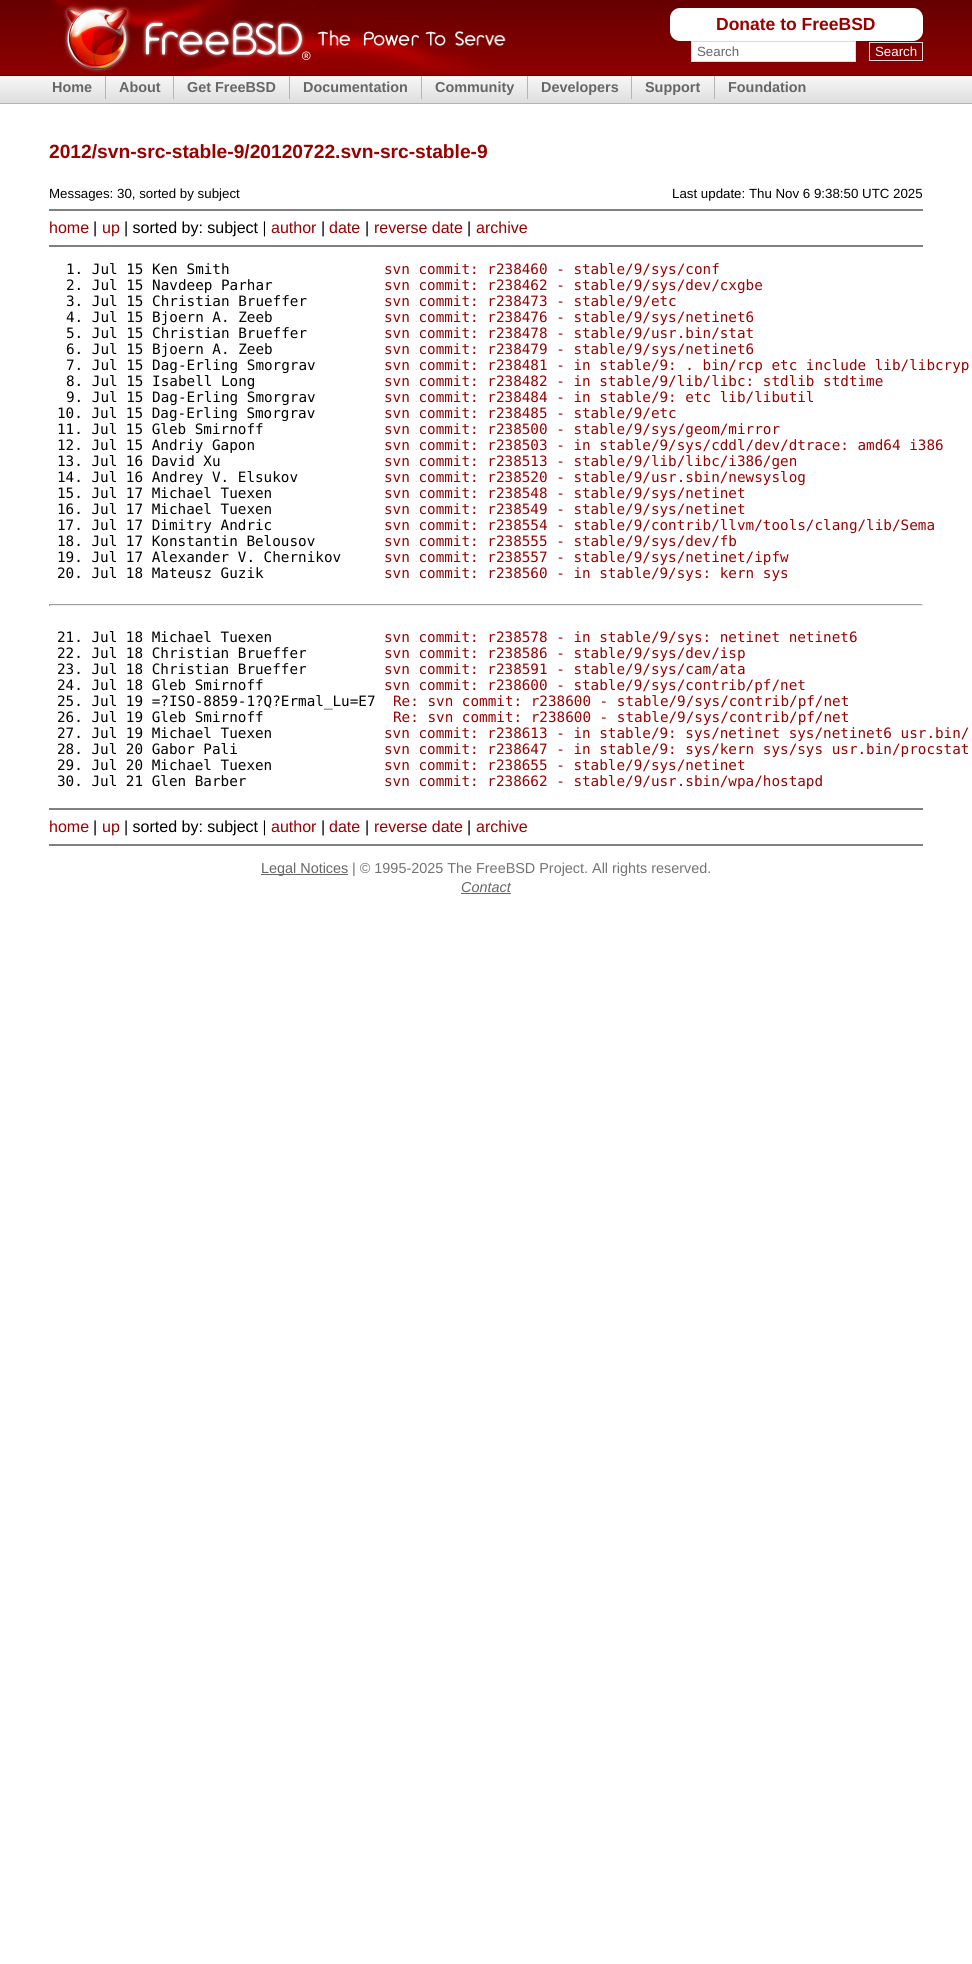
#include <cairo.h>
#include <math.h>
#include <stddef.h>


static void round_rect(cairo_t *cr, double x, double y, double w, double h, double r) {
    cairo_new_sub_path(cr);
    cairo_arc(cr, x + w - r, y + h - r, r, 0, M_PI / 2);
    cairo_arc(cr, x + r, y + h - r, r, M_PI / 2, M_PI);
    cairo_arc(cr, x + r, y + r, r, M_PI, 1.5 * M_PI);
    cairo_arc(cr, x + w - r, y + r, r, 1.5 * M_PI, 2 * M_PI);
    cairo_close_path(cr);
}

static void picture(cairo_t *cr, const char *path, double x, double y, double w, double h) {
    cairo_surface_t *image = cairo_image_surface_create_from_png(path);
    cairo_save(cr);
    cairo_set_source_surface(cr, image, x, y);
    cairo_rectangle(cr, x, y, w, h);
    cairo_fill(cr);
    cairo_restore(cr);
    cairo_surface_destroy(image);
}

int main(void) {
    cairo_surface_t *surface = cairo_image_surface_create(CAIRO_FORMAT_RGB24, 972, 1964);
    cairo_t *cr = cairo_create(surface);
    cairo_font_options_t *options = cairo_font_options_create();
    cairo_font_options_set_hint_metrics(options, CAIRO_HINT_METRICS_OFF);
    cairo_font_options_set_hint_style(options, CAIRO_HINT_STYLE_NONE);
    cairo_set_font_options(cr, options);
    cairo_set_miter_limit(cr, 4);
    cairo_set_source_rgb(cr, 1, 1, 1);
    cairo_paint(cr);
    picture(cr, "img1.png", 0, 0, 972, 104);
    picture(cr, "img2.png", 51, 0, 455, 75);
    cairo_set_source_rgb(cr, 1, 1, 1);
    round_rect(cr, 670, 8, 253, 33, 10);
    cairo_fill(cr);
    cairo_select_font_face(cr, "Liberation Sans", CAIRO_FONT_SLANT_NORMAL, CAIRO_FONT_WEIGHT_BOLD);
    cairo_set_font_size(cr, 17.5);
    cairo_set_source_rgb(cr, 0.6, 0, 0);
    cairo_move_to(cr, 716, 30);
    cairo_show_text(cr, "Donate to FreeBSD");
    cairo_set_source_rgb(cr, 1, 1, 1);
    cairo_rectangle(cr, 691.5, 41.5, 164, 20);
    cairo_fill_preserve(cr);
    cairo_set_source_rgb(cr, 0.855, 0.855, 0.855);
    cairo_set_line_width(cr, 1);
    cairo_stroke(cr);
    cairo_select_font_face(cr, "Liberation Sans", CAIRO_FONT_SLANT_NORMAL, CAIRO_FONT_WEIGHT_NORMAL);
    cairo_set_font_size(cr, 13.3);
    cairo_set_source_rgb(cr, 0.4, 0.4, 0.4);
    cairo_move_to(cr, 697, 56);
    cairo_show_text(cr, "Search");
    cairo_rectangle(cr, 869.5, 42.5, 53, 18);
    cairo_set_source_rgb(cr, 0.855, 0.855, 0.855);
    cairo_stroke(cr);
    cairo_set_source_rgb(cr, 1, 1, 1);
    cairo_move_to(cr, 875, 56);
    cairo_show_text(cr, "Search");
    cairo_select_font_face(cr, "Liberation Sans", CAIRO_FONT_SLANT_NORMAL, CAIRO_FONT_WEIGHT_BOLD);
    cairo_set_font_size(cr, 14.4);
    cairo_set_source_rgb(cr, 0.4, 0.4, 0.4);
    cairo_move_to(cr, 52, 92);
    cairo_show_text(cr, "Home");
    cairo_set_source_rgb(cr, 0.706, 0.706, 0.706);
    cairo_rectangle(cr, 105, 76, 1, 23);
    cairo_fill(cr);
    cairo_set_source_rgb(cr, 0.4, 0.4, 0.4);
    cairo_move_to(cr, 119, 92);
    cairo_show_text(cr, "About");
    cairo_set_source_rgb(cr, 0.706, 0.706, 0.706);
    cairo_rectangle(cr, 173, 76, 1, 23);
    cairo_fill(cr);
    cairo_set_source_rgb(cr, 0.4, 0.4, 0.4);
    cairo_move_to(cr, 187, 92);
    cairo_show_text(cr, "Get FreeBSD");
    cairo_set_source_rgb(cr, 0.706, 0.706, 0.706);
    cairo_rectangle(cr, 289, 76, 1, 23);
    cairo_fill(cr);
    cairo_set_source_rgb(cr, 0.4, 0.4, 0.4);
    cairo_move_to(cr, 303, 92);
    cairo_show_text(cr, "Documentation");
    cairo_set_source_rgb(cr, 0.706, 0.706, 0.706);
    cairo_rectangle(cr, 421, 76, 1, 23);
    cairo_fill(cr);
    cairo_set_source_rgb(cr, 0.4, 0.4, 0.4);
    cairo_move_to(cr, 435, 92);
    cairo_show_text(cr, "Community");
    cairo_set_source_rgb(cr, 0.706, 0.706, 0.706);
    cairo_rectangle(cr, 527, 76, 1, 23);
    cairo_fill(cr);
    cairo_set_source_rgb(cr, 0.4, 0.4, 0.4);
    cairo_move_to(cr, 541, 92);
    cairo_show_text(cr, "Developers");
    cairo_set_source_rgb(cr, 0.706, 0.706, 0.706);
    cairo_rectangle(cr, 631, 76, 1, 23);
    cairo_fill(cr);
    cairo_set_source_rgb(cr, 0.4, 0.4, 0.4);
    cairo_move_to(cr, 645, 92);
    cairo_show_text(cr, "Support");
    cairo_set_source_rgb(cr, 0.706, 0.706, 0.706);
    cairo_rectangle(cr, 714, 76, 1, 23);
    cairo_fill(cr);
    cairo_set_source_rgb(cr, 0.4, 0.4, 0.4);
    cairo_move_to(cr, 728, 92);
    cairo_show_text(cr, "Foundation");
    cairo_set_font_size(cr, 19.2);
    cairo_set_source_rgb(cr, 0.6, 0, 0);
    cairo_move_to(cr, 49, 158);
    cairo_show_text(cr, "2012/svn-src-stable-9/20120722.svn-src-stable-9");
    cairo_select_font_face(cr, "Liberation Sans", CAIRO_FONT_SLANT_NORMAL, CAIRO_FONT_WEIGHT_NORMAL);
    cairo_set_font_size(cr, 13.3);
    cairo_set_source_rgb(cr, 0, 0, 0);
    cairo_move_to(cr, 49, 198);
    cairo_show_text(cr, "Messages: 30, sorted by subject");
    cairo_move_to(cr, 672, 198);
    cairo_show_text(cr, "Last update: Thu Nov 6 9:38:50 UTC 2025");
    cairo_set_source_rgb(cr, 0.502, 0.502, 0.502);
    cairo_rectangle(cr, 49, 209, 874, 2);
    cairo_fill(cr);
    cairo_set_font_size(cr, 16);
    cairo_set_source_rgb(cr, 0.6, 0, 0);
    cairo_move_to(cr, 49, 233);
    cairo_show_text(cr, "home");
    cairo_set_source_rgb(cr, 0, 0, 0);
    cairo_move_to(cr, 93, 233);
    cairo_show_text(cr, "|");
    cairo_set_source_rgb(cr, 0.6, 0, 0);
    cairo_move_to(cr, 102, 233);
    cairo_show_text(cr, "up");
    cairo_set_source_rgb(cr, 0, 0, 0);
    cairo_move_to(cr, 124, 233);
    cairo_show_text(cr, "| sorted by: subject |");
    cairo_set_source_rgb(cr, 0.6, 0, 0);
    cairo_move_to(cr, 271, 233);
    cairo_show_text(cr, "author");
    cairo_set_source_rgb(cr, 0, 0, 0);
    cairo_move_to(cr, 321, 233);
    cairo_show_text(cr, "|");
    cairo_set_source_rgb(cr, 0.6, 0, 0);
    cairo_move_to(cr, 329, 233);
    cairo_show_text(cr, "date");
    cairo_set_source_rgb(cr, 0, 0, 0);
    cairo_move_to(cr, 365, 233);
    cairo_show_text(cr, "|");
    cairo_set_source_rgb(cr, 0.6, 0, 0);
    cairo_move_to(cr, 374, 233);
    cairo_show_text(cr, "reverse date");
    cairo_set_source_rgb(cr, 0, 0, 0);
    cairo_move_to(cr, 467, 233);
    cairo_show_text(cr, "|");
    cairo_set_source_rgb(cr, 0.6, 0, 0);
    cairo_move_to(cr, 476, 233);
    cairo_show_text(cr, "archive");
    cairo_set_source_rgb(cr, 0.502, 0.502, 0.502);
    cairo_rectangle(cr, 49, 245, 874, 2);
    cairo_fill(cr);
    cairo_select_font_face(cr, "DejaVu Sans Mono", CAIRO_FONT_SLANT_NORMAL, CAIRO_FONT_WEIGHT_NORMAL);
    cairo_set_font_size(cr, 14.3);
    cairo_set_source_rgb(cr, 0, 0, 0);
    cairo_move_to(cr, 66, 274);
    cairo_show_text(cr, "1. Jul 15 Ken Smith");
    cairo_set_source_rgb(cr, 0.6, 0, 0);
    cairo_move_to(cr, 384, 274);
    cairo_show_text(cr, "svn commit: r238460 - stable/9/sys/conf");
    cairo_set_source_rgb(cr, 0, 0, 0);
    cairo_move_to(cr, 66, 290);
    cairo_show_text(cr, "2. Jul 15 Navdeep Parhar");
    cairo_set_source_rgb(cr, 0.6, 0, 0);
    cairo_move_to(cr, 384, 290);
    cairo_show_text(cr, "svn commit: r238462 - stable/9/sys/dev/cxgbe");
    cairo_set_source_rgb(cr, 0, 0, 0);
    cairo_move_to(cr, 66, 306);
    cairo_show_text(cr, "3. Jul 15 Christian Brueffer");
    cairo_set_source_rgb(cr, 0.6, 0, 0);
    cairo_move_to(cr, 384, 306);
    cairo_show_text(cr, "svn commit: r238473 - stable/9/etc");
    cairo_set_source_rgb(cr, 0, 0, 0);
    cairo_move_to(cr, 66, 322);
    cairo_show_text(cr, "4. Jul 15 Bjoern A. Zeeb");
    cairo_set_source_rgb(cr, 0.6, 0, 0);
    cairo_move_to(cr, 384, 322);
    cairo_show_text(cr, "svn commit: r238476 - stable/9/sys/netinet6");
    cairo_set_source_rgb(cr, 0, 0, 0);
    cairo_move_to(cr, 66, 338);
    cairo_show_text(cr, "5. Jul 15 Christian Brueffer");
    cairo_set_source_rgb(cr, 0.6, 0, 0);
    cairo_move_to(cr, 384, 338);
    cairo_show_text(cr, "svn commit: r238478 - stable/9/usr.bin/stat");
    cairo_set_source_rgb(cr, 0, 0, 0);
    cairo_move_to(cr, 66, 354);
    cairo_show_text(cr, "6. Jul 15 Bjoern A. Zeeb");
    cairo_set_source_rgb(cr, 0.6, 0, 0);
    cairo_move_to(cr, 384, 354);
    cairo_show_text(cr, "svn commit: r238479 - stable/9/sys/netinet6");
    cairo_set_source_rgb(cr, 0, 0, 0);
    cairo_move_to(cr, 66, 370);
    cairo_show_text(cr, "7. Jul 15 Dag-Erling Smorgrav");
    cairo_set_source_rgb(cr, 0.6, 0, 0);
    cairo_move_to(cr, 384, 370);
    cairo_show_text(cr, "svn commit: r238481 - in stable/9: . bin/rcp etc include lib/libcryp");
    cairo_set_source_rgb(cr, 0, 0, 0);
    cairo_move_to(cr, 66, 386);
    cairo_show_text(cr, "8. Jul 15 Isabell Long");
    cairo_set_source_rgb(cr, 0.6, 0, 0);
    cairo_move_to(cr, 384, 386);
    cairo_show_text(cr, "svn commit: r238482 - in stable/9/lib/libc: stdlib stdtime");
    cairo_set_source_rgb(cr, 0, 0, 0);
    cairo_move_to(cr, 66, 402);
    cairo_show_text(cr, "9. Jul 15 Dag-Erling Smorgrav");
    cairo_set_source_rgb(cr, 0.6, 0, 0);
    cairo_move_to(cr, 384, 402);
    cairo_show_text(cr, "svn commit: r238484 - in stable/9: etc lib/libutil");
    cairo_set_source_rgb(cr, 0, 0, 0);
    cairo_move_to(cr, 57, 418);
    cairo_show_text(cr, "10. Jul 15 Dag-Erling Smorgrav");
    cairo_set_source_rgb(cr, 0.6, 0, 0);
    cairo_move_to(cr, 384, 418);
    cairo_show_text(cr, "svn commit: r238485 - stable/9/etc");
    cairo_set_source_rgb(cr, 0, 0, 0);
    cairo_move_to(cr, 57, 434);
    cairo_show_text(cr, "11. Jul 15 Gleb Smirnoff");
    cairo_set_source_rgb(cr, 0.6, 0, 0);
    cairo_move_to(cr, 384, 434);
    cairo_show_text(cr, "svn commit: r238500 - stable/9/sys/geom/mirror");
    cairo_set_source_rgb(cr, 0, 0, 0);
    cairo_move_to(cr, 57, 450);
    cairo_show_text(cr, "12. Jul 15 Andriy Gapon");
    cairo_set_source_rgb(cr, 0.6, 0, 0);
    cairo_move_to(cr, 384, 450);
    cairo_show_text(cr, "svn commit: r238503 - in stable/9/sys/cddl/dev/dtrace: amd64 i386");
    cairo_set_source_rgb(cr, 0, 0, 0);
    cairo_move_to(cr, 57, 466);
    cairo_show_text(cr, "13. Jul 16 David Xu");
    cairo_set_source_rgb(cr, 0.6, 0, 0);
    cairo_move_to(cr, 384, 466);
    cairo_show_text(cr, "svn commit: r238513 - stable/9/lib/libc/i386/gen");
    cairo_set_source_rgb(cr, 0, 0, 0);
    cairo_move_to(cr, 57, 482);
    cairo_show_text(cr, "14. Jul 16 Andrey V. Elsukov");
    cairo_set_source_rgb(cr, 0.6, 0, 0);
    cairo_move_to(cr, 384, 482);
    cairo_show_text(cr, "svn commit: r238520 - stable/9/usr.sbin/newsyslog");
    cairo_set_source_rgb(cr, 0, 0, 0);
    cairo_move_to(cr, 57, 498);
    cairo_show_text(cr, "15. Jul 17 Michael Tuexen");
    cairo_set_source_rgb(cr, 0.6, 0, 0);
    cairo_move_to(cr, 384, 498);
    cairo_show_text(cr, "svn commit: r238548 - stable/9/sys/netinet");
    cairo_set_source_rgb(cr, 0, 0, 0);
    cairo_move_to(cr, 57, 514);
    cairo_show_text(cr, "16. Jul 17 Michael Tuexen");
    cairo_set_source_rgb(cr, 0.6, 0, 0);
    cairo_move_to(cr, 384, 514);
    cairo_show_text(cr, "svn commit: r238549 - stable/9/sys/netinet");
    cairo_set_source_rgb(cr, 0, 0, 0);
    cairo_move_to(cr, 57, 530);
    cairo_show_text(cr, "17. Jul 17 Dimitry Andric");
    cairo_set_source_rgb(cr, 0.6, 0, 0);
    cairo_move_to(cr, 384, 530);
    cairo_show_text(cr, "svn commit: r238554 - stable/9/contrib/llvm/tools/clang/lib/Sema");
    cairo_set_source_rgb(cr, 0, 0, 0);
    cairo_move_to(cr, 57, 546);
    cairo_show_text(cr, "18. Jul 17 Konstantin Belousov");
    cairo_set_source_rgb(cr, 0.6, 0, 0);
    cairo_move_to(cr, 384, 546);
    cairo_show_text(cr, "svn commit: r238555 - stable/9/sys/dev/fb");
    cairo_set_source_rgb(cr, 0, 0, 0);
    cairo_move_to(cr, 57, 562);
    cairo_show_text(cr, "19. Jul 17 Alexander V. Chernikov");
    cairo_set_source_rgb(cr, 0.6, 0, 0);
    cairo_move_to(cr, 384, 562);
    cairo_show_text(cr, "svn commit: r238557 - stable/9/sys/netinet/ipfw");
    cairo_set_source_rgb(cr, 0, 0, 0);
    cairo_move_to(cr, 57, 578);
    cairo_show_text(cr, "20. Jul 18 Mateusz Guzik");
    cairo_set_source_rgb(cr, 0.6, 0, 0);
    cairo_move_to(cr, 384, 578);
    cairo_show_text(cr, "svn commit: r238560 - in stable/9/sys: kern sys");
    cairo_set_source_rgb(cr, 0.624, 0.624, 0.624);
    cairo_rectangle(cr, 49, 604, 874, 1);
    cairo_fill(cr);
    cairo_set_source_rgb(cr, 0.933, 0.933, 0.933);
    cairo_rectangle(cr, 922, 604, 1, 2);
    cairo_fill(cr);
    cairo_rectangle(cr, 49, 605, 874, 1);
    cairo_fill(cr);
    cairo_set_source_rgb(cr, 0.624, 0.624, 0.624);
    cairo_rectangle(cr, 49, 604, 1, 2);
    cairo_fill(cr);
    cairo_set_source_rgb(cr, 0, 0, 0);
    cairo_move_to(cr, 57, 642);
    cairo_show_text(cr, "21. Jul 18 Michael Tuexen");
    cairo_set_source_rgb(cr, 0.6, 0, 0);
    cairo_move_to(cr, 384, 642);
    cairo_show_text(cr, "svn commit: r238578 - in stable/9/sys: netinet netinet6");
    cairo_set_source_rgb(cr, 0, 0, 0);
    cairo_move_to(cr, 57, 658);
    cairo_show_text(cr, "22. Jul 18 Christian Brueffer");
    cairo_set_source_rgb(cr, 0.6, 0, 0);
    cairo_move_to(cr, 384, 658);
    cairo_show_text(cr, "svn commit: r238586 - stable/9/sys/dev/isp");
    cairo_set_source_rgb(cr, 0, 0, 0);
    cairo_move_to(cr, 57, 674);
    cairo_show_text(cr, "23. Jul 18 Christian Brueffer");
    cairo_set_source_rgb(cr, 0.6, 0, 0);
    cairo_move_to(cr, 384, 674);
    cairo_show_text(cr, "svn commit: r238591 - stable/9/sys/cam/ata");
    cairo_set_source_rgb(cr, 0, 0, 0);
    cairo_move_to(cr, 57, 690);
    cairo_show_text(cr, "24. Jul 18 Gleb Smirnoff");
    cairo_set_source_rgb(cr, 0.6, 0, 0);
    cairo_move_to(cr, 384, 690);
    cairo_show_text(cr, "svn commit: r238600 - stable/9/sys/contrib/pf/net");
    cairo_set_source_rgb(cr, 0, 0, 0);
    cairo_move_to(cr, 57, 706);
    cairo_show_text(cr, "25. Jul 19 =?ISO-8859-1?Q?Ermal_Lu=E7");
    cairo_set_source_rgb(cr, 0.6, 0, 0);
    cairo_move_to(cr, 393, 706);
    cairo_show_text(cr, "Re: svn commit: r238600 - stable/9/sys/contrib/pf/net");
    cairo_set_source_rgb(cr, 0, 0, 0);
    cairo_move_to(cr, 57, 722);
    cairo_show_text(cr, "26. Jul 19 Gleb Smirnoff");
    cairo_set_source_rgb(cr, 0.6, 0, 0);
    cairo_move_to(cr, 393, 722);
    cairo_show_text(cr, "Re: svn commit: r238600 - stable/9/sys/contrib/pf/net");
    cairo_set_source_rgb(cr, 0, 0, 0);
    cairo_move_to(cr, 57, 738);
    cairo_show_text(cr, "27. Jul 19 Michael Tuexen");
    cairo_set_source_rgb(cr, 0.6, 0, 0);
    cairo_move_to(cr, 384, 738);
    cairo_show_text(cr, "svn commit: r238613 - in stable/9: sys/netinet sys/netinet6 usr.bin/");
    cairo_set_source_rgb(cr, 0, 0, 0);
    cairo_move_to(cr, 57, 754);
    cairo_show_text(cr, "28. Jul 20 Gabor Pali");
    cairo_set_source_rgb(cr, 0.6, 0, 0);
    cairo_move_to(cr, 384, 754);
    cairo_show_text(cr, "svn commit: r238647 - in stable/9: sys/kern sys/sys usr.bin/procstat");
    cairo_set_source_rgb(cr, 0, 0, 0);
    cairo_move_to(cr, 57, 770);
    cairo_show_text(cr, "29. Jul 20 Michael Tuexen");
    cairo_set_source_rgb(cr, 0.6, 0, 0);
    cairo_move_to(cr, 384, 770);
    cairo_show_text(cr, "svn commit: r238655 - stable/9/sys/netinet");
    cairo_set_source_rgb(cr, 0, 0, 0);
    cairo_move_to(cr, 57, 786);
    cairo_show_text(cr, "30. Jul 21 Glen Barber");
    cairo_set_source_rgb(cr, 0.6, 0, 0);
    cairo_move_to(cr, 384, 786);
    cairo_show_text(cr, "svn commit: r238662 - stable/9/usr.sbin/wpa/hostapd");
    cairo_set_source_rgb(cr, 0.502, 0.502, 0.502);
    cairo_rectangle(cr, 49, 808, 874, 2);
    cairo_fill(cr);
    cairo_select_font_face(cr, "Liberation Sans", CAIRO_FONT_SLANT_NORMAL, CAIRO_FONT_WEIGHT_NORMAL);
    cairo_set_font_size(cr, 16);
    cairo_set_source_rgb(cr, 0.6, 0, 0);
    cairo_move_to(cr, 49, 832);
    cairo_show_text(cr, "home");
    cairo_set_source_rgb(cr, 0, 0, 0);
    cairo_move_to(cr, 93, 832);
    cairo_show_text(cr, "|");
    cairo_set_source_rgb(cr, 0.6, 0, 0);
    cairo_move_to(cr, 102, 832);
    cairo_show_text(cr, "up");
    cairo_set_source_rgb(cr, 0, 0, 0);
    cairo_move_to(cr, 124, 832);
    cairo_show_text(cr, "| sorted by: subject |");
    cairo_set_source_rgb(cr, 0.6, 0, 0);
    cairo_move_to(cr, 271, 832);
    cairo_show_text(cr, "author");
    cairo_set_source_rgb(cr, 0, 0, 0);
    cairo_move_to(cr, 321, 832);
    cairo_show_text(cr, "|");
    cairo_set_source_rgb(cr, 0.6, 0, 0);
    cairo_move_to(cr, 329, 832);
    cairo_show_text(cr, "date");
    cairo_set_source_rgb(cr, 0, 0, 0);
    cairo_move_to(cr, 365, 832);
    cairo_show_text(cr, "|");
    cairo_set_source_rgb(cr, 0.6, 0, 0);
    cairo_move_to(cr, 374, 832);
    cairo_show_text(cr, "reverse date");
    cairo_set_source_rgb(cr, 0, 0, 0);
    cairo_move_to(cr, 467, 832);
    cairo_show_text(cr, "|");
    cairo_set_source_rgb(cr, 0.6, 0, 0);
    cairo_move_to(cr, 476, 832);
    cairo_show_text(cr, "archive");
    cairo_set_source_rgb(cr, 0.502, 0.502, 0.502);
    cairo_rectangle(cr, 49, 844, 874, 2);
    cairo_fill(cr);
    cairo_set_source_rgb(cr, 0.4, 0.4, 0.4);
    cairo_rectangle(cr, 261, 874, 87, 1);
    cairo_fill(cr);
    cairo_set_font_size(cr, 14.4);
    cairo_move_to(cr, 261, 873);
    cairo_show_text(cr, "Legal Notices");
    cairo_set_source_rgb(cr, 0.451, 0.451, 0.451);
    cairo_move_to(cr, 352, 873);
    cairo_show_text(cr, "| © 1995-2025 The FreeBSD Project. All rights reserved.");
    cairo_select_font_face(cr, "Liberation Sans", CAIRO_FONT_SLANT_ITALIC, CAIRO_FONT_WEIGHT_NORMAL);
    cairo_set_source_rgb(cr, 0.4, 0.4, 0.4);
    cairo_move_to(cr, 461, 892);
    cairo_show_text(cr, "Contact");
    cairo_rectangle(cr, 461, 893, 50, 1);
    cairo_fill(cr);
    cairo_surface_write_to_png(surface, "page.png");
    cairo_font_options_destroy(options);
    cairo_destroy(cr);
    cairo_surface_destroy(surface);
    return 0;
}
